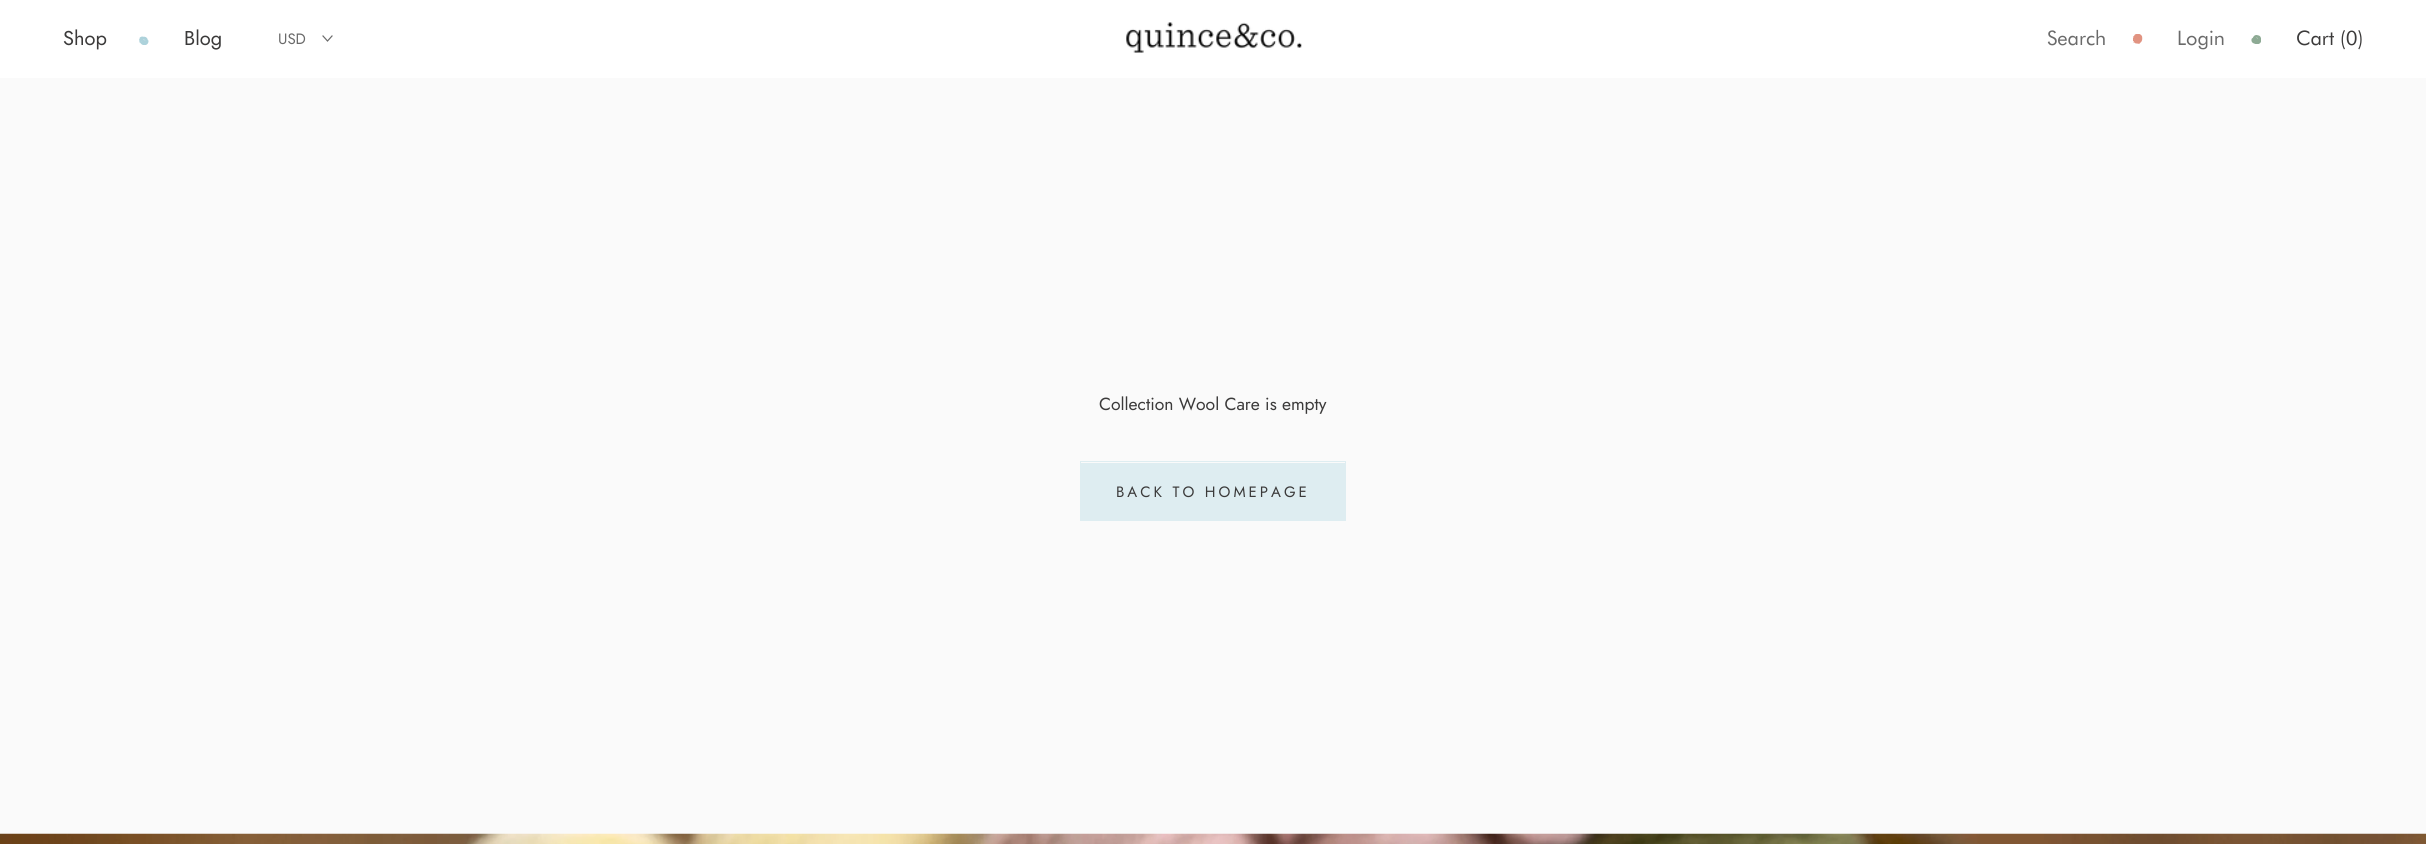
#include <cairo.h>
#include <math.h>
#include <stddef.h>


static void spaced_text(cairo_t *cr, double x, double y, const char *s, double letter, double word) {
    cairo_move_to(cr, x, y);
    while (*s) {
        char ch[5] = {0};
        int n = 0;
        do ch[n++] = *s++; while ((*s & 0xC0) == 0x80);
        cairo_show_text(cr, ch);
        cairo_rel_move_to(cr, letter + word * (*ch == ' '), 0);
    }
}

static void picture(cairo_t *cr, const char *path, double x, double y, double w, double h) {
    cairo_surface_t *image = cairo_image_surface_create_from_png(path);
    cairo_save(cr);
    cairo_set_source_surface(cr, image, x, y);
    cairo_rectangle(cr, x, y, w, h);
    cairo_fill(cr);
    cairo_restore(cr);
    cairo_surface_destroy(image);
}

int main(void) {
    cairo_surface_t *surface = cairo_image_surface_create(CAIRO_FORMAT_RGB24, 2426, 844);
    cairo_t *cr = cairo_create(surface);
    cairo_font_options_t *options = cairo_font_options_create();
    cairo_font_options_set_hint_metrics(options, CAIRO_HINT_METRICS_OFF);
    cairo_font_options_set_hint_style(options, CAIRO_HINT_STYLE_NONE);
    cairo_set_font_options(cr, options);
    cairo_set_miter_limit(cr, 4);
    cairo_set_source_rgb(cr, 0.98, 0.98, 0.98);
    cairo_paint(cr);
    cairo_set_source_rgb(cr, 1, 1, 1);
    cairo_rectangle(cr, 0, 0, 2426, 78);
    cairo_fill(cr);
    cairo_select_font_face(cr, "Jost", CAIRO_FONT_SLANT_NORMAL, CAIRO_FONT_WEIGHT_NORMAL);
    cairo_set_font_size(cr, 20);
    cairo_set_source_rgb(cr, 0.231, 0.227, 0.227);
    cairo_move_to(cr, 63, 45);
    cairo_show_text(cr, "Shop");
    picture(cr, "img1.png", 139, 36, 10, 9);
    cairo_move_to(cr, 184, 45);
    cairo_show_text(cr, "Blog");
    cairo_set_font_size(cr, 15);
    cairo_set_source_rgb(cr, 0.416, 0.416, 0.416);
    cairo_move_to(cr, 278, 44);
    cairo_show_text(cr, "USD");
    cairo_new_path(cr);
    cairo_move_to(cr, 332, 36);
    cairo_line_to(cr, 327.5, 41);
    cairo_line_to(cr, 323, 36);
    cairo_set_line_width(cr, 1.2);
    cairo_set_line_cap(cr, CAIRO_LINE_CAP_SQUARE);
    cairo_stroke(cr);
    picture(cr, "img2.png", 1126, 22, 176, 31);
    cairo_select_font_face(cr, "Futura", CAIRO_FONT_SLANT_NORMAL, CAIRO_FONT_WEIGHT_NORMAL);
    cairo_set_font_size(cr, 20);
    cairo_move_to(cr, 2047, 45);
    cairo_show_text(cr, "Search");
    picture(cr, "img3.png", 2133, 34, 10, 10);
    cairo_move_to(cr, 2177, 45);
    cairo_show_text(cr, "Login");
    picture(cr, "img4.png", 2251, 35, 10, 9);
    cairo_set_source_rgb(cr, 0.231, 0.227, 0.227);
    cairo_move_to(cr, 2296, 45);
    cairo_show_text(cr, "Cart (0)");
    cairo_select_font_face(cr, "Jost", CAIRO_FONT_SLANT_NORMAL, CAIRO_FONT_WEIGHT_NORMAL);
    cairo_set_font_size(cr, 17.5);
    cairo_move_to(cr, 1099, 410);
    cairo_show_text(cr, "Collection Wool Care is empty");
    cairo_rectangle(cr, 1080.5, 461.5, 265, 59);
    cairo_set_source_rgb(cr, 0.871, 0.929, 0.945);
    cairo_set_line_width(cr, 1);
    cairo_set_line_cap(cr, CAIRO_LINE_CAP_BUTT);
    cairo_stroke(cr);
    cairo_rectangle(cr, 1081, 463, 264, 57);
    cairo_fill(cr);
    cairo_set_font_size(cr, 15);
    cairo_set_source_rgb(cr, 0.231, 0.227, 0.227);
    spaced_text(cr, 1116, 497, "BACK TO HOMEPAGE", 3, 0);
    picture(cr, "img5.png", 0, 833, 2426, 11);
    cairo_surface_write_to_png(surface, "page.png");
    cairo_font_options_destroy(options);
    cairo_destroy(cr);
    cairo_surface_destroy(surface);
    return 0;
}
